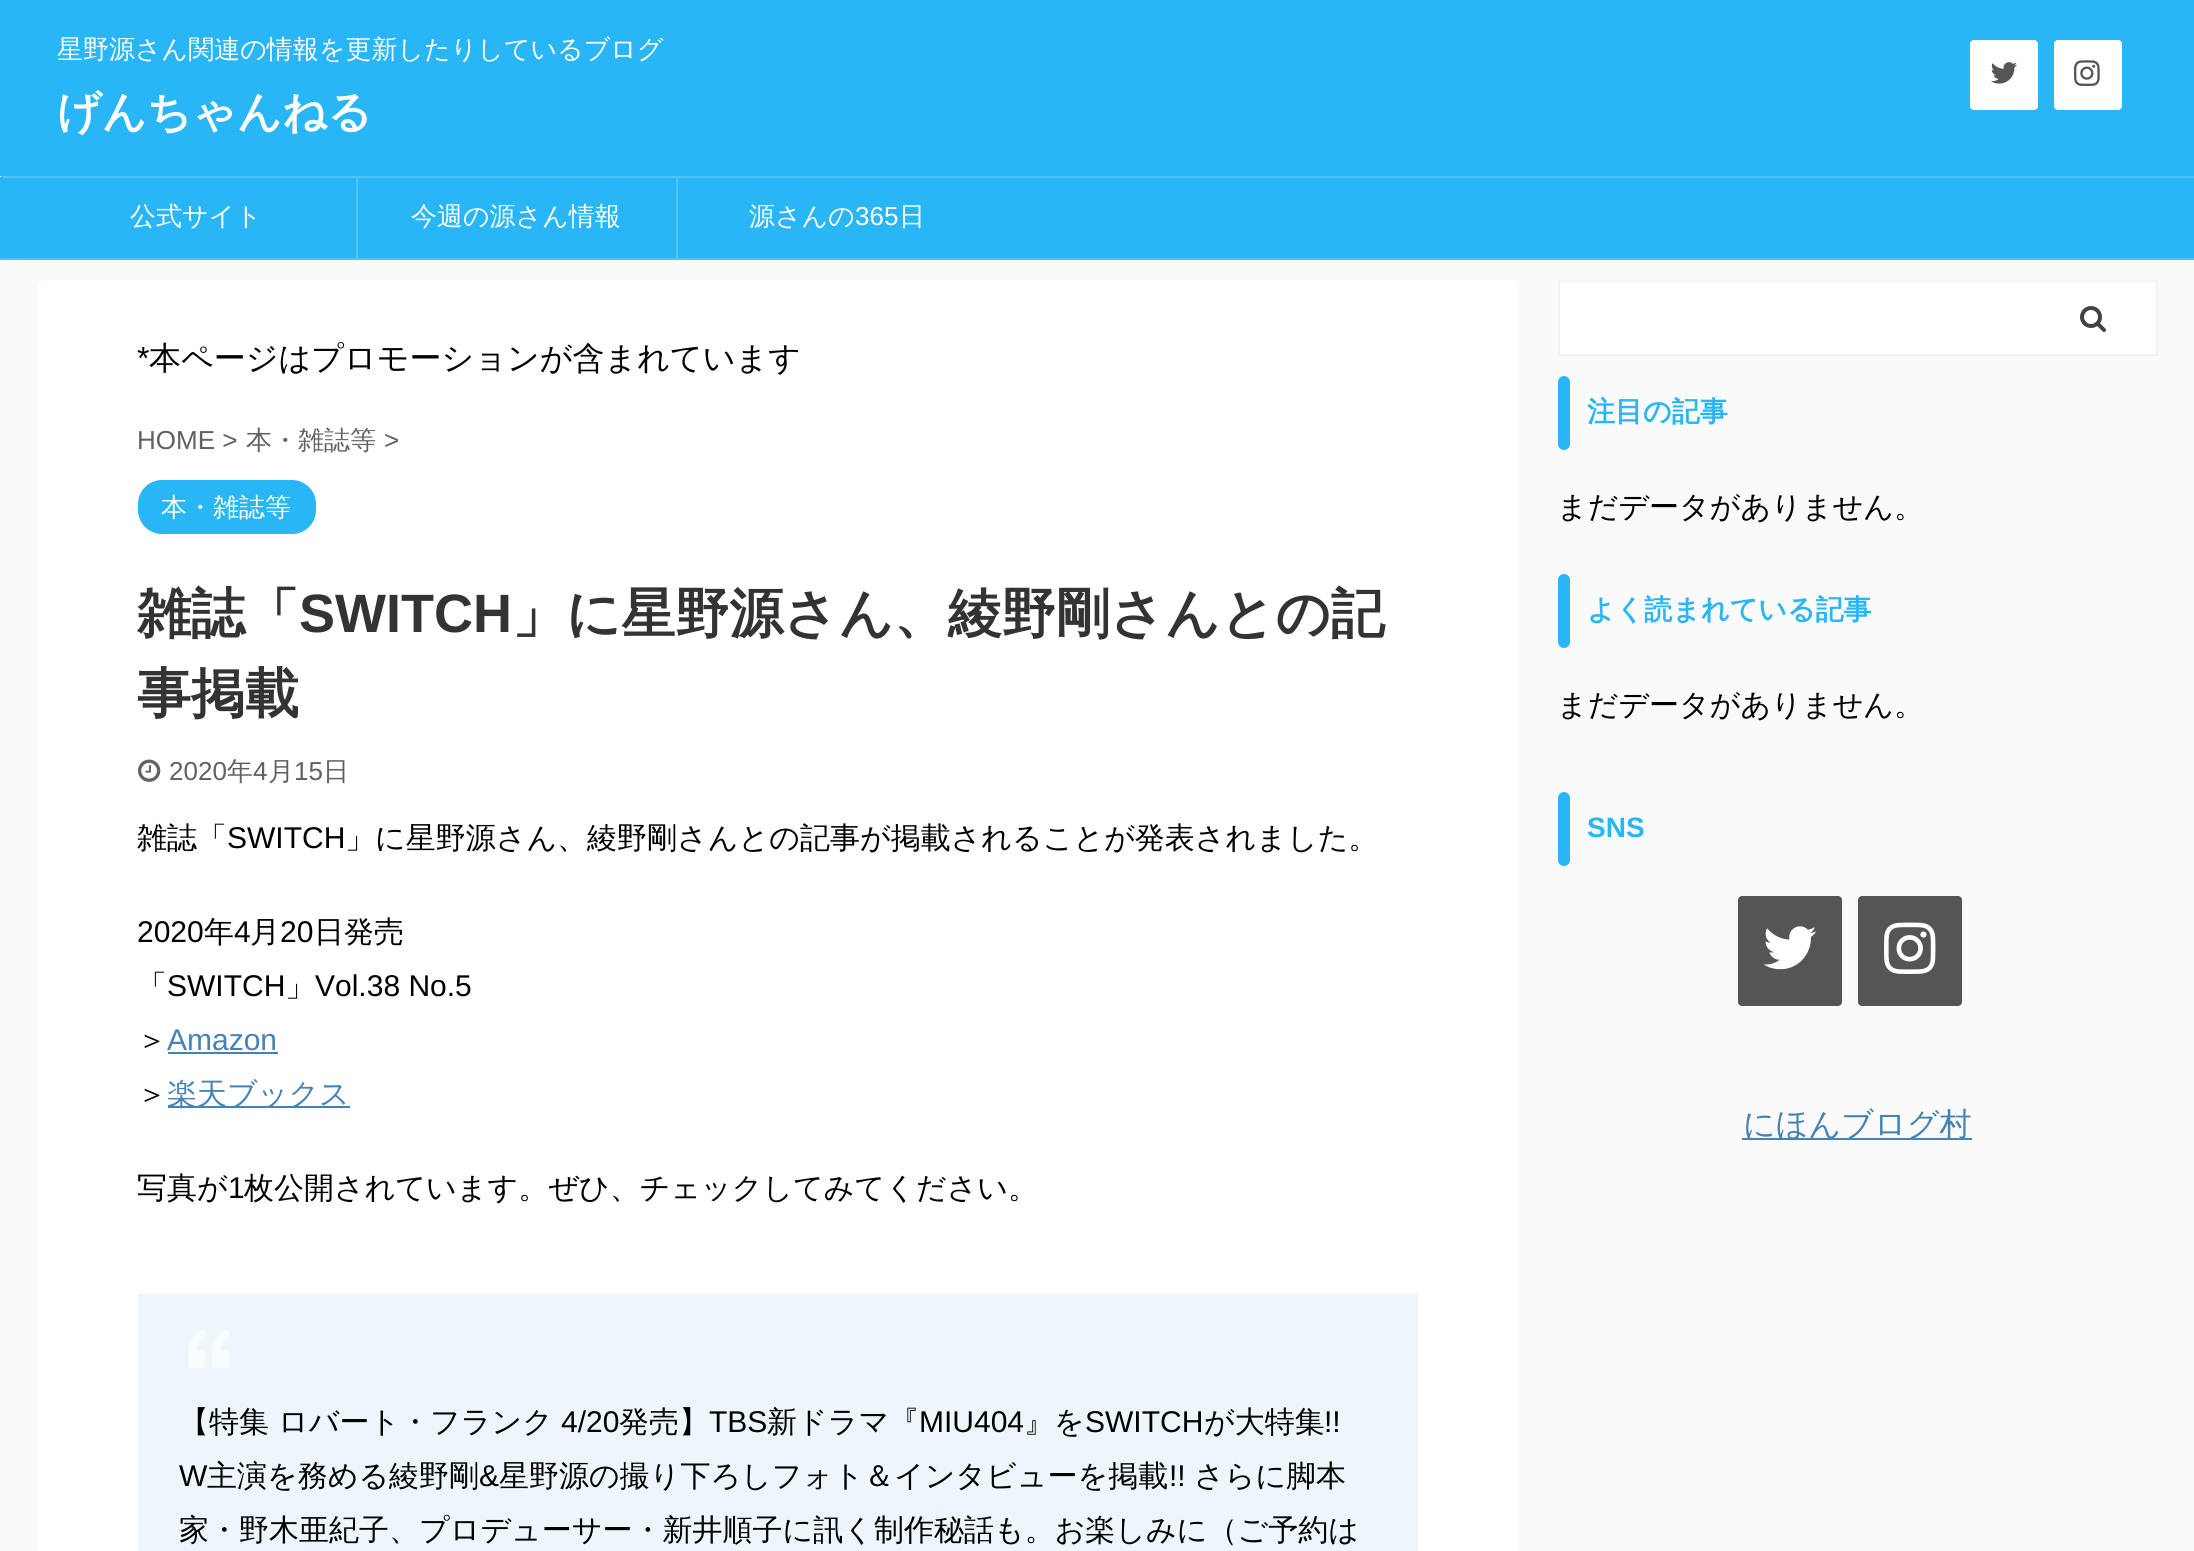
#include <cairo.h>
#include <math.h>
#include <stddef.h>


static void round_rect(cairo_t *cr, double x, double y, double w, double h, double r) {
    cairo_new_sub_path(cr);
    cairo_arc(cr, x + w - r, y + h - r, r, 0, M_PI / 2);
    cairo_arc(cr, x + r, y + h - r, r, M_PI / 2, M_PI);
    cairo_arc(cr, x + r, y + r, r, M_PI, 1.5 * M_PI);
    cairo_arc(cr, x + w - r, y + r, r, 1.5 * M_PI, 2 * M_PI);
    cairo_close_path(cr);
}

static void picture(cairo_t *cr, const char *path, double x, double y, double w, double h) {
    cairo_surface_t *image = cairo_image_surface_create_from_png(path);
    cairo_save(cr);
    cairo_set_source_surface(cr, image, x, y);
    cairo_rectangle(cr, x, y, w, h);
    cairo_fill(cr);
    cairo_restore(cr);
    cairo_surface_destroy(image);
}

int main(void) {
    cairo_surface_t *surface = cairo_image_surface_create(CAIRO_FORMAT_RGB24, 2194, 1551);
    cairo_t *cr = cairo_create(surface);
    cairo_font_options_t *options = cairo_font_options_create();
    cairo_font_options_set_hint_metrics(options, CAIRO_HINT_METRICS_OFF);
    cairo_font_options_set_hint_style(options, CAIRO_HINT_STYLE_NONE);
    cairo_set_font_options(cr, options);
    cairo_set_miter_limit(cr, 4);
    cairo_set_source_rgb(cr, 0.98, 0.98, 0.98);
    cairo_paint(cr);
    cairo_set_source_rgb(cr, 0.161, 0.714, 0.965);
    cairo_rectangle(cr, 0, 0, 2194, 176);
    cairo_fill(cr);
    cairo_select_font_face(cr, "WenQuanYi Zen Hei Medium", CAIRO_FONT_SLANT_NORMAL, CAIRO_FONT_WEIGHT_NORMAL);
    cairo_set_font_size(cr, 26);
    cairo_set_source_rgb(cr, 1, 1, 1);
    cairo_move_to(cr, 57, 58);
    cairo_show_text(cr, "星野源さん関連の情報を更新したりしているブログ");
    cairo_select_font_face(cr, "WenQuanYi Zen Hei", CAIRO_FONT_SLANT_NORMAL, CAIRO_FONT_WEIGHT_BOLD);
    cairo_set_font_size(cr, 44);
    cairo_move_to(cr, 57, 127);
    cairo_show_text(cr, "げんちゃんねる");
    round_rect(cr, 1970, 40, 68, 70, 4);
    cairo_fill(cr);
    picture(cr, "img1.png", 1991, 62, 26, 22);
    round_rect(cr, 2054, 40, 68, 70, 4);
    cairo_fill(cr);
    picture(cr, "img2.png", 2074, 60, 26, 26);
    cairo_set_source_rgb(cr, 0.161, 0.714, 0.965);
    round_rect(cr, 0, 176, 2194, 84, 2);
    cairo_fill(cr);
    cairo_set_source_rgb(cr, 0.31, 0.765, 0.969);
    cairo_rectangle(cr, 2, 176, 2192, 2);
    cairo_fill(cr);
    cairo_rectangle(cr, 2, 258, 2192, 2);
    cairo_fill(cr);
    cairo_rectangle(cr, 356, 178, 2, 80);
    cairo_fill(cr);
    cairo_select_font_face(cr, "WenQuanYi Zen Hei Medium", CAIRO_FONT_SLANT_NORMAL, CAIRO_FONT_WEIGHT_NORMAL);
    cairo_set_font_size(cr, 26);
    cairo_set_source_rgb(cr, 1, 1, 1);
    cairo_move_to(cr, 130, 225);
    cairo_show_text(cr, "公式サイト");
    cairo_set_source_rgb(cr, 0.31, 0.765, 0.969);
    cairo_rectangle(cr, 676, 178, 2, 80);
    cairo_fill(cr);
    cairo_set_source_rgb(cr, 1, 1, 1);
    cairo_move_to(cr, 411, 225);
    cairo_show_text(cr, "今週の源さん情報");
    cairo_move_to(cr, 749, 225);
    cairo_show_text(cr, "源さんの");
    cairo_select_font_face(cr, "Liberation Sans", CAIRO_FONT_SLANT_NORMAL, CAIRO_FONT_WEIGHT_NORMAL);
    cairo_move_to(cr, 855, 225);
    cairo_show_text(cr, "365");
    cairo_select_font_face(cr, "WenQuanYi Zen Hei Medium", CAIRO_FONT_SLANT_NORMAL, CAIRO_FONT_WEIGHT_NORMAL);
    cairo_move_to(cr, 899, 225);
    cairo_show_text(cr, "日");
    round_rect(cr, 38, 280, 1480, 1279, 8);
    cairo_fill(cr);
    cairo_select_font_face(cr, "Liberation Sans", CAIRO_FONT_SLANT_NORMAL, CAIRO_FONT_WEIGHT_NORMAL);
    cairo_set_font_size(cr, 32);
    cairo_set_source_rgb(cr, 0, 0, 0);
    cairo_move_to(cr, 137, 369);
    cairo_show_text(cr, "*");
    cairo_select_font_face(cr, "WenQuanYi Zen Hei Medium", CAIRO_FONT_SLANT_NORMAL, CAIRO_FONT_WEIGHT_NORMAL);
    cairo_move_to(cr, 149, 369);
    cairo_show_text(cr, "本ページはプロモーションが含まれています");
    cairo_select_font_face(cr, "Liberation Sans", CAIRO_FONT_SLANT_NORMAL, CAIRO_FONT_WEIGHT_NORMAL);
    cairo_set_font_size(cr, 26);
    cairo_set_source_rgb(cr, 0.38, 0.38, 0.38);
    cairo_move_to(cr, 137, 449);
    cairo_show_text(cr, "HOME >");
    cairo_select_font_face(cr, "WenQuanYi Zen Hei Medium", CAIRO_FONT_SLANT_NORMAL, CAIRO_FONT_WEIGHT_NORMAL);
    cairo_move_to(cr, 246, 449);
    cairo_show_text(cr, "本・雑誌等");
    cairo_select_font_face(cr, "Liberation Sans", CAIRO_FONT_SLANT_NORMAL, CAIRO_FONT_WEIGHT_NORMAL);
    cairo_move_to(cr, 384, 449);
    cairo_show_text(cr, ">");
    cairo_set_source_rgb(cr, 0.161, 0.714, 0.965);
    round_rect(cr, 138, 480, 178, 54, 24);
    cairo_fill(cr);
    cairo_select_font_face(cr, "WenQuanYi Zen Hei Medium", CAIRO_FONT_SLANT_NORMAL, CAIRO_FONT_WEIGHT_NORMAL);
    cairo_set_source_rgb(cr, 1, 1, 1);
    cairo_move_to(cr, 161, 516);
    cairo_show_text(cr, "本・雑誌等");
    cairo_select_font_face(cr, "WenQuanYi Zen Hei", CAIRO_FONT_SLANT_NORMAL, CAIRO_FONT_WEIGHT_BOLD);
    cairo_set_font_size(cr, 54);
    cairo_set_source_rgb(cr, 0.2, 0.2, 0.2);
    cairo_move_to(cr, 137, 632);
    cairo_show_text(cr, "雑誌「");
    cairo_select_font_face(cr, "Liberation Sans", CAIRO_FONT_SLANT_NORMAL, CAIRO_FONT_WEIGHT_BOLD);
    cairo_move_to(cr, 299, 632);
    cairo_show_text(cr, "SWITCH");
    cairo_select_font_face(cr, "WenQuanYi Zen Hei", CAIRO_FONT_SLANT_NORMAL, CAIRO_FONT_WEIGHT_BOLD);
    cairo_move_to(cr, 512, 632);
    cairo_show_text(cr, "」に星野源さん、綾野剛さんとの記");
    cairo_move_to(cr, 137, 712);
    cairo_show_text(cr, "事掲載");
    picture(cr, "img3.png", 138, 759, 23, 23);
    cairo_select_font_face(cr, "Liberation Sans", CAIRO_FONT_SLANT_NORMAL, CAIRO_FONT_WEIGHT_NORMAL);
    cairo_set_font_size(cr, 26);
    cairo_set_source_rgb(cr, 0.38, 0.38, 0.38);
    cairo_move_to(cr, 169, 780);
    cairo_show_text(cr, "2020");
    cairo_select_font_face(cr, "WenQuanYi Zen Hei Medium", CAIRO_FONT_SLANT_NORMAL, CAIRO_FONT_WEIGHT_NORMAL);
    cairo_move_to(cr, 227, 780);
    cairo_show_text(cr, "年");
    cairo_select_font_face(cr, "Liberation Sans", CAIRO_FONT_SLANT_NORMAL, CAIRO_FONT_WEIGHT_NORMAL);
    cairo_move_to(cr, 253, 780);
    cairo_show_text(cr, "4");
    cairo_select_font_face(cr, "WenQuanYi Zen Hei Medium", CAIRO_FONT_SLANT_NORMAL, CAIRO_FONT_WEIGHT_NORMAL);
    cairo_move_to(cr, 268, 780);
    cairo_show_text(cr, "月");
    cairo_select_font_face(cr, "Liberation Sans", CAIRO_FONT_SLANT_NORMAL, CAIRO_FONT_WEIGHT_NORMAL);
    cairo_move_to(cr, 294, 780);
    cairo_show_text(cr, "15");
    cairo_select_font_face(cr, "WenQuanYi Zen Hei Medium", CAIRO_FONT_SLANT_NORMAL, CAIRO_FONT_WEIGHT_NORMAL);
    cairo_move_to(cr, 323, 780);
    cairo_show_text(cr, "日");
    cairo_set_font_size(cr, 30);
    cairo_set_source_rgb(cr, 0, 0, 0);
    cairo_move_to(cr, 137, 848);
    cairo_show_text(cr, "雑誌「");
    cairo_select_font_face(cr, "Liberation Sans", CAIRO_FONT_SLANT_NORMAL, CAIRO_FONT_WEIGHT_NORMAL);
    cairo_move_to(cr, 227, 848);
    cairo_show_text(cr, "SWITCH");
    cairo_select_font_face(cr, "WenQuanYi Zen Hei Medium", CAIRO_FONT_SLANT_NORMAL, CAIRO_FONT_WEIGHT_NORMAL);
    cairo_move_to(cr, 345, 848);
    cairo_show_text(cr, "」に星野源さん、綾野剛さんとの記事が掲載されることが発表されました。");
    cairo_select_font_face(cr, "Liberation Sans", CAIRO_FONT_SLANT_NORMAL, CAIRO_FONT_WEIGHT_NORMAL);
    cairo_move_to(cr, 137, 942);
    cairo_show_text(cr, "2020");
    cairo_select_font_face(cr, "WenQuanYi Zen Hei Medium", CAIRO_FONT_SLANT_NORMAL, CAIRO_FONT_WEIGHT_NORMAL);
    cairo_move_to(cr, 204, 942);
    cairo_show_text(cr, "年");
    cairo_select_font_face(cr, "Liberation Sans", CAIRO_FONT_SLANT_NORMAL, CAIRO_FONT_WEIGHT_NORMAL);
    cairo_move_to(cr, 234, 942);
    cairo_show_text(cr, "4");
    cairo_select_font_face(cr, "WenQuanYi Zen Hei Medium", CAIRO_FONT_SLANT_NORMAL, CAIRO_FONT_WEIGHT_NORMAL);
    cairo_move_to(cr, 250, 942);
    cairo_show_text(cr, "月");
    cairo_select_font_face(cr, "Liberation Sans", CAIRO_FONT_SLANT_NORMAL, CAIRO_FONT_WEIGHT_NORMAL);
    cairo_move_to(cr, 280, 942);
    cairo_show_text(cr, "20");
    cairo_select_font_face(cr, "WenQuanYi Zen Hei Medium", CAIRO_FONT_SLANT_NORMAL, CAIRO_FONT_WEIGHT_NORMAL);
    cairo_move_to(cr, 314, 942);
    cairo_show_text(cr, "日発売");
    cairo_move_to(cr, 137, 996);
    cairo_show_text(cr, "「");
    cairo_select_font_face(cr, "Liberation Sans", CAIRO_FONT_SLANT_NORMAL, CAIRO_FONT_WEIGHT_NORMAL);
    cairo_move_to(cr, 167, 996);
    cairo_show_text(cr, "SWITCH");
    cairo_select_font_face(cr, "WenQuanYi Zen Hei Medium", CAIRO_FONT_SLANT_NORMAL, CAIRO_FONT_WEIGHT_NORMAL);
    cairo_move_to(cr, 285, 996);
    cairo_show_text(cr, "」");
    cairo_select_font_face(cr, "Liberation Sans", CAIRO_FONT_SLANT_NORMAL, CAIRO_FONT_WEIGHT_NORMAL);
    cairo_move_to(cr, 315, 996);
    cairo_show_text(cr, "Vol.38 No.5");
    cairo_select_font_face(cr, "WenQuanYi Zen Hei Medium", CAIRO_FONT_SLANT_NORMAL, CAIRO_FONT_WEIGHT_NORMAL);
    cairo_move_to(cr, 137, 1050);
    cairo_show_text(cr, "＞");
    cairo_select_font_face(cr, "Liberation Sans", CAIRO_FONT_SLANT_NORMAL, CAIRO_FONT_WEIGHT_NORMAL);
    cairo_set_source_rgb(cr, 0.275, 0.51, 0.706);
    cairo_move_to(cr, 167, 1050);
    cairo_show_text(cr, "Amazon");
    cairo_rectangle(cr, 168, 1052, 110, 2);
    cairo_fill(cr);
    cairo_select_font_face(cr, "WenQuanYi Zen Hei Medium", CAIRO_FONT_SLANT_NORMAL, CAIRO_FONT_WEIGHT_NORMAL);
    cairo_set_source_rgb(cr, 0, 0, 0);
    cairo_move_to(cr, 137, 1104);
    cairo_show_text(cr, "＞");
    cairo_set_source_rgb(cr, 0.275, 0.51, 0.706);
    cairo_rectangle(cr, 168, 1106, 182, 2);
    cairo_fill(cr);
    cairo_move_to(cr, 167, 1104);
    cairo_show_text(cr, "楽天ブックス");
    cairo_set_source_rgb(cr, 0, 0, 0);
    cairo_move_to(cr, 137, 1198);
    cairo_show_text(cr, "写真が");
    cairo_select_font_face(cr, "Liberation Sans", CAIRO_FONT_SLANT_NORMAL, CAIRO_FONT_WEIGHT_NORMAL);
    cairo_move_to(cr, 228, 1198);
    cairo_show_text(cr, "1");
    cairo_select_font_face(cr, "WenQuanYi Zen Hei Medium", CAIRO_FONT_SLANT_NORMAL, CAIRO_FONT_WEIGHT_NORMAL);
    cairo_move_to(cr, 244, 1198);
    cairo_show_text(cr, "枚公開されています。ぜひ、チェックしてみてください。");
    cairo_set_source_rgb(cr, 0.929, 0.965, 0.984);
    cairo_rectangle(cr, 138, 1294, 1280, 257);
    cairo_fill(cr);
    picture(cr, "img4.png", 188, 1330, 42, 38);
    cairo_set_source_rgb(cr, 0, 0, 0);
    cairo_move_to(cr, 179, 1432);
    cairo_show_text(cr, "【特集 ロバート・フランク");
    cairo_select_font_face(cr, "Liberation Sans", CAIRO_FONT_SLANT_NORMAL, CAIRO_FONT_WEIGHT_NORMAL);
    cairo_move_to(cr, 561, 1432);
    cairo_show_text(cr, "4/20");
    cairo_select_font_face(cr, "WenQuanYi Zen Hei Medium", CAIRO_FONT_SLANT_NORMAL, CAIRO_FONT_WEIGHT_NORMAL);
    cairo_move_to(cr, 619, 1432);
    cairo_show_text(cr, "発売】");
    cairo_select_font_face(cr, "Liberation Sans", CAIRO_FONT_SLANT_NORMAL, CAIRO_FONT_WEIGHT_NORMAL);
    cairo_move_to(cr, 709, 1432);
    cairo_show_text(cr, "TBS");
    cairo_select_font_face(cr, "WenQuanYi Zen Hei Medium", CAIRO_FONT_SLANT_NORMAL, CAIRO_FONT_WEIGHT_NORMAL);
    cairo_move_to(cr, 767, 1432);
    cairo_show_text(cr, "新ドラマ『");
    cairo_select_font_face(cr, "Liberation Sans", CAIRO_FONT_SLANT_NORMAL, CAIRO_FONT_WEIGHT_NORMAL);
    cairo_move_to(cr, 919, 1432);
    cairo_show_text(cr, "MIU404");
    cairo_select_font_face(cr, "WenQuanYi Zen Hei Medium", CAIRO_FONT_SLANT_NORMAL, CAIRO_FONT_WEIGHT_NORMAL);
    cairo_move_to(cr, 1024, 1432);
    cairo_show_text(cr, "』を");
    cairo_select_font_face(cr, "Liberation Sans", CAIRO_FONT_SLANT_NORMAL, CAIRO_FONT_WEIGHT_NORMAL);
    cairo_move_to(cr, 1085, 1432);
    cairo_show_text(cr, "SWITCH");
    cairo_select_font_face(cr, "WenQuanYi Zen Hei Medium", CAIRO_FONT_SLANT_NORMAL, CAIRO_FONT_WEIGHT_NORMAL);
    cairo_move_to(cr, 1204, 1432);
    cairo_show_text(cr, "が大特集");
    cairo_select_font_face(cr, "Liberation Sans", CAIRO_FONT_SLANT_NORMAL, CAIRO_FONT_WEIGHT_NORMAL);
    cairo_move_to(cr, 1324, 1432);
    cairo_show_text(cr, "!!");
    cairo_move_to(cr, 179, 1486);
    cairo_show_text(cr, "W");
    cairo_select_font_face(cr, "WenQuanYi Zen Hei Medium", CAIRO_FONT_SLANT_NORMAL, CAIRO_FONT_WEIGHT_NORMAL);
    cairo_move_to(cr, 207, 1486);
    cairo_show_text(cr, "主演を務める綾野剛");
    cairo_select_font_face(cr, "Liberation Sans", CAIRO_FONT_SLANT_NORMAL, CAIRO_FONT_WEIGHT_NORMAL);
    cairo_move_to(cr, 479, 1486);
    cairo_show_text(cr, "&");
    cairo_select_font_face(cr, "WenQuanYi Zen Hei Medium", CAIRO_FONT_SLANT_NORMAL, CAIRO_FONT_WEIGHT_NORMAL);
    cairo_move_to(cr, 499, 1486);
    cairo_show_text(cr, "星野源の撮り下ろしフォト＆インタビューを掲載");
    cairo_select_font_face(cr, "Liberation Sans", CAIRO_FONT_SLANT_NORMAL, CAIRO_FONT_WEIGHT_NORMAL);
    cairo_move_to(cr, 1169, 1486);
    cairo_show_text(cr, "!!");
    cairo_select_font_face(cr, "WenQuanYi Zen Hei Medium", CAIRO_FONT_SLANT_NORMAL, CAIRO_FONT_WEIGHT_NORMAL);
    cairo_move_to(cr, 1194, 1486);
    cairo_show_text(cr, "さらに脚本");
    cairo_move_to(cr, 179, 1540);
    cairo_show_text(cr, "家・野木亜紀子、プロデューサー・新井順子に訊く制作秘話も。お楽しみに（ご予約は");
    cairo_rectangle(cr, 1559, 281, 598, 74);
    cairo_set_source_rgb(cr, 0.953, 0.953, 0.953);
    cairo_stroke(cr);
    cairo_set_source_rgb(cr, 1, 1, 1);
    cairo_rectangle(cr, 1560, 282, 596, 72);
    cairo_fill(cr);
    picture(cr, "img5.png", 2080, 306, 26, 26);
    cairo_set_source_rgb(cr, 0.161, 0.714, 0.965);
    round_rect(cr, 1558, 376, 12, 74, 6);
    cairo_fill(cr);
    cairo_select_font_face(cr, "WenQuanYi Zen Hei", CAIRO_FONT_SLANT_NORMAL, CAIRO_FONT_WEIGHT_BOLD);
    cairo_set_font_size(cr, 28);
    cairo_move_to(cr, 1587, 421);
    cairo_show_text(cr, "注目の記事");
    cairo_select_font_face(cr, "WenQuanYi Zen Hei Medium", CAIRO_FONT_SLANT_NORMAL, CAIRO_FONT_WEIGHT_NORMAL);
    cairo_set_font_size(cr, 30);
    cairo_set_source_rgb(cr, 0, 0, 0);
    cairo_move_to(cr, 1557, 517);
    cairo_show_text(cr, "まだデータがありません。");
    cairo_set_source_rgb(cr, 0.161, 0.714, 0.965);
    round_rect(cr, 1558, 574, 12, 74, 6);
    cairo_fill(cr);
    cairo_select_font_face(cr, "WenQuanYi Zen Hei", CAIRO_FONT_SLANT_NORMAL, CAIRO_FONT_WEIGHT_BOLD);
    cairo_set_font_size(cr, 28);
    cairo_move_to(cr, 1587, 619);
    cairo_show_text(cr, "よく読まれている記事");
    cairo_select_font_face(cr, "WenQuanYi Zen Hei Medium", CAIRO_FONT_SLANT_NORMAL, CAIRO_FONT_WEIGHT_NORMAL);
    cairo_set_font_size(cr, 30);
    cairo_set_source_rgb(cr, 0, 0, 0);
    cairo_move_to(cr, 1557, 715);
    cairo_show_text(cr, "まだデータがありません。");
    cairo_set_source_rgb(cr, 0.161, 0.714, 0.965);
    round_rect(cr, 1558, 792, 12, 74, 6);
    cairo_fill(cr);
    cairo_select_font_face(cr, "Liberation Sans", CAIRO_FONT_SLANT_NORMAL, CAIRO_FONT_WEIGHT_BOLD);
    cairo_set_font_size(cr, 28);
    cairo_move_to(cr, 1587, 837);
    cairo_show_text(cr, "SNS");
    cairo_set_source_rgb(cr, 0.333, 0.333, 0.333);
    round_rect(cr, 1738, 896, 104, 110, 4);
    cairo_fill(cr);
    picture(cr, "img6.png", 1763, 926, 54, 44);
    round_rect(cr, 1858, 896, 104, 110, 4);
    cairo_fill(cr);
    picture(cr, "img7.png", 1884, 922, 52, 52);
    cairo_set_source_rgb(cr, 0.275, 0.51, 0.706);
    cairo_rectangle(cr, 1742, 1138, 230, 2);
    cairo_fill(cr);
    cairo_select_font_face(cr, "WenQuanYi Zen Hei Medium", CAIRO_FONT_SLANT_NORMAL, CAIRO_FONT_WEIGHT_NORMAL);
    cairo_set_font_size(cr, 32);
    cairo_move_to(cr, 1743, 1135);
    cairo_show_text(cr, "にほんブログ村");
    cairo_surface_write_to_png(surface, "page.png");
    cairo_font_options_destroy(options);
    cairo_destroy(cr);
    cairo_surface_destroy(surface);
    return 0;
}
